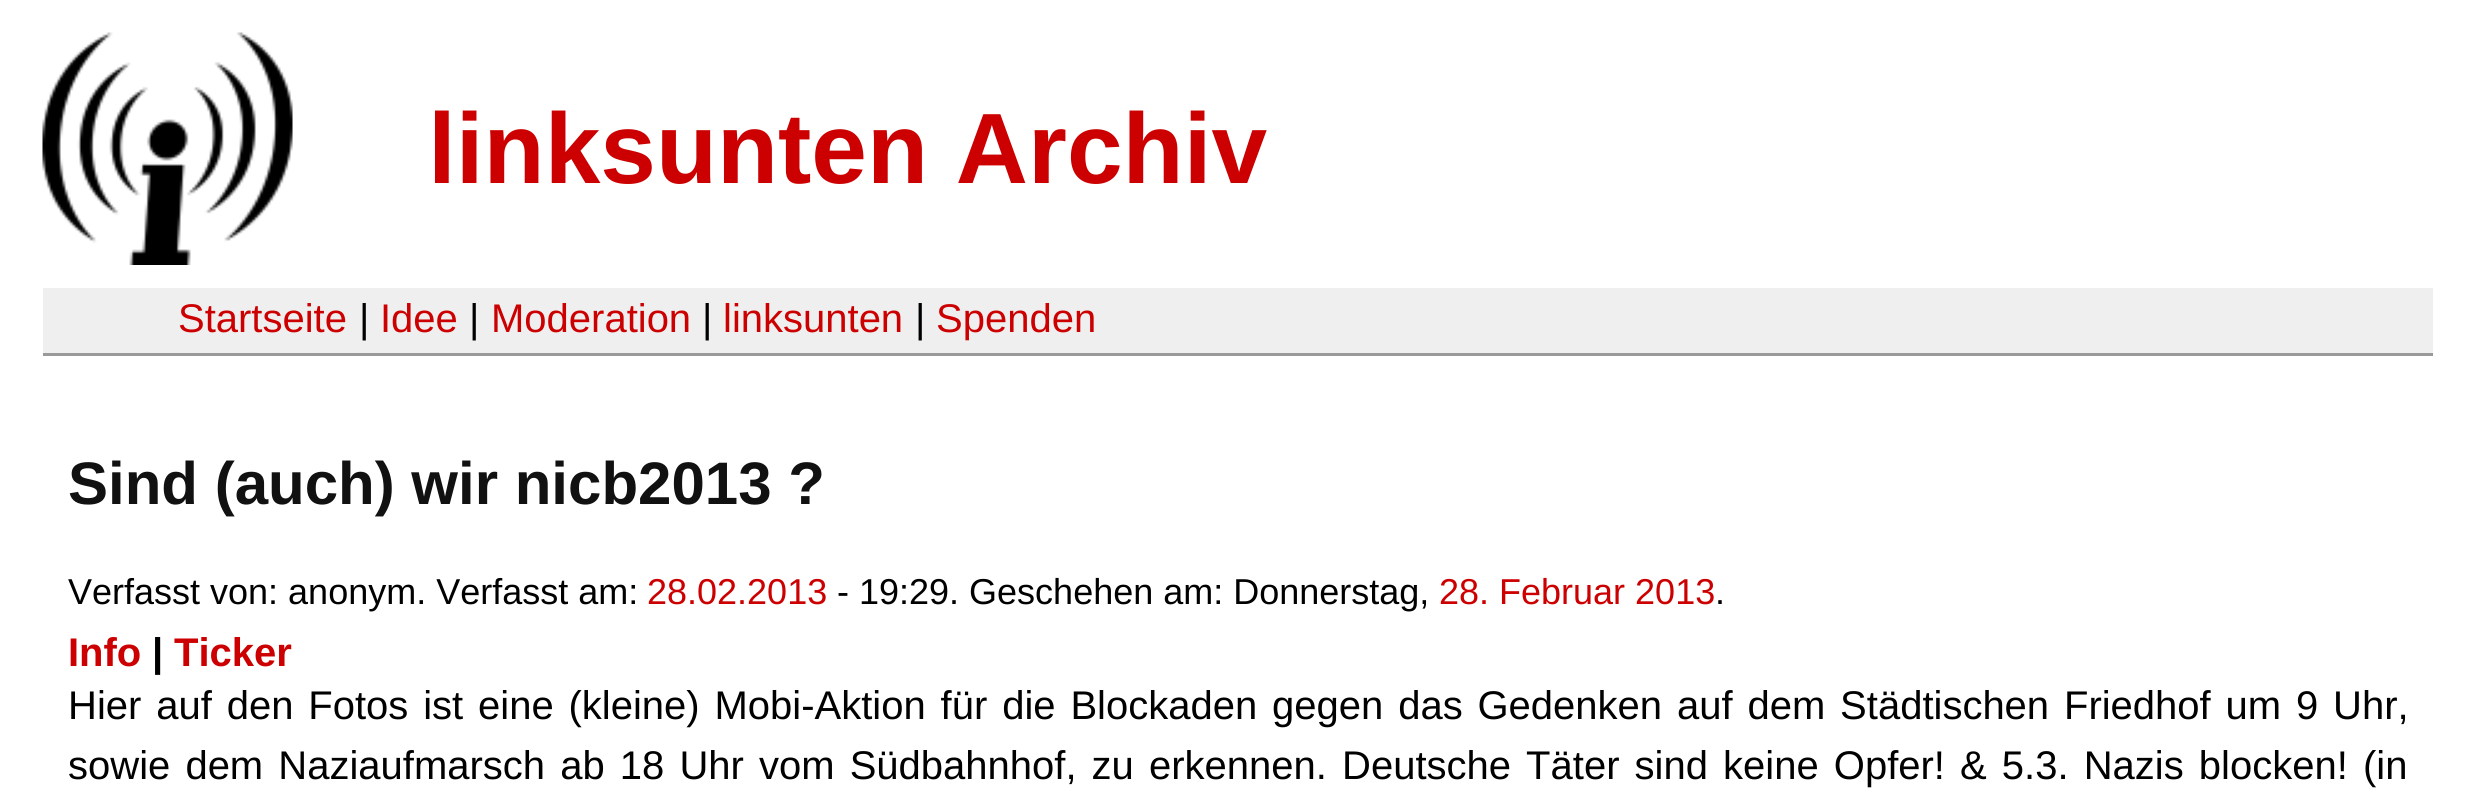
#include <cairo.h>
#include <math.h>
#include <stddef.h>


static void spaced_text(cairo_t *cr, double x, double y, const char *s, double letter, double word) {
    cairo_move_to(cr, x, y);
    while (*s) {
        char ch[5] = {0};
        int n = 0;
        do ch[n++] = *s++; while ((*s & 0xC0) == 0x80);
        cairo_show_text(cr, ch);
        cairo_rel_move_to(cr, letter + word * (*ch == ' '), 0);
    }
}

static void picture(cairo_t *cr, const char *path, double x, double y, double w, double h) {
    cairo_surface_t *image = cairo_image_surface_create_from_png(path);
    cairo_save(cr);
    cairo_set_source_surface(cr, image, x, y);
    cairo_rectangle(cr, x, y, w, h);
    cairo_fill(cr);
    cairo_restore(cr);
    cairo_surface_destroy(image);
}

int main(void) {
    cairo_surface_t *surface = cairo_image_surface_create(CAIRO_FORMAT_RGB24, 2475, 804);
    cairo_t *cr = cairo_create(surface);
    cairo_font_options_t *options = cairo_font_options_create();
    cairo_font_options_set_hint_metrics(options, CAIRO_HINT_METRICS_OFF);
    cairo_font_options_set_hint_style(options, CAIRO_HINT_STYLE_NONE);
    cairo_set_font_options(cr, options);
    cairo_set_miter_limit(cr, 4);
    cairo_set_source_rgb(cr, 1, 1, 1);
    cairo_paint(cr);
    picture(cr, "img1.png", 42, 32, 251, 233);
    cairo_select_font_face(cr, "Liberation Sans", CAIRO_FONT_SLANT_NORMAL, CAIRO_FONT_WEIGHT_BOLD);
    cairo_set_font_size(cr, 100);
    cairo_set_source_rgb(cr, 0.8, 0, 0);
    cairo_move_to(cr, 428, 183);
    cairo_show_text(cr, "linksunten Archiv");
    cairo_set_source_rgb(cr, 0.937, 0.937, 0.937);
    cairo_rectangle(cr, 43, 288, 2390, 65);
    cairo_fill(cr);
    cairo_set_source_rgb(cr, 0.6, 0.6, 0.6);
    cairo_rectangle(cr, 43, 353, 2390, 3);
    cairo_fill(cr);
    cairo_select_font_face(cr, "Liberation Sans", CAIRO_FONT_SLANT_NORMAL, CAIRO_FONT_WEIGHT_NORMAL);
    cairo_set_font_size(cr, 40);
    cairo_set_source_rgb(cr, 0.8, 0, 0);
    cairo_move_to(cr, 178, 332);
    cairo_show_text(cr, "Startseite");
    cairo_set_source_rgb(cr, 0, 0, 0);
    cairo_move_to(cr, 359, 332);
    cairo_show_text(cr, "|");
    cairo_set_source_rgb(cr, 0.8, 0, 0);
    cairo_move_to(cr, 380, 332);
    cairo_show_text(cr, "Idee");
    cairo_set_source_rgb(cr, 0, 0, 0);
    cairo_move_to(cr, 469, 332);
    cairo_show_text(cr, "|");
    cairo_set_source_rgb(cr, 0.8, 0, 0);
    cairo_move_to(cr, 491, 332);
    cairo_show_text(cr, "Moderation");
    cairo_set_source_rgb(cr, 0, 0, 0);
    cairo_move_to(cr, 702, 332);
    cairo_show_text(cr, "|");
    cairo_set_source_rgb(cr, 0.8, 0, 0);
    cairo_move_to(cr, 723, 332);
    cairo_show_text(cr, "linksunten");
    cairo_set_source_rgb(cr, 0, 0, 0);
    cairo_move_to(cr, 915, 332);
    cairo_show_text(cr, "|");
    cairo_set_source_rgb(cr, 0.8, 0, 0);
    cairo_move_to(cr, 936, 332);
    cairo_show_text(cr, "Spenden");
    cairo_select_font_face(cr, "Liberation Sans", CAIRO_FONT_SLANT_NORMAL, CAIRO_FONT_WEIGHT_BOLD);
    cairo_set_font_size(cr, 60);
    cairo_set_source_rgb(cr, 0.067, 0.067, 0.067);
    cairo_move_to(cr, 68, 504);
    cairo_show_text(cr, "Sind (auch) wir nicb2013 ?");
    cairo_select_font_face(cr, "Liberation Sans", CAIRO_FONT_SLANT_NORMAL, CAIRO_FONT_WEIGHT_NORMAL);
    cairo_set_font_size(cr, 36);
    cairo_set_source_rgb(cr, 0, 0, 0);
    cairo_move_to(cr, 68, 604);
    cairo_show_text(cr, "Verfasst von: anonym. Verfasst am:");
    cairo_set_source_rgb(cr, 0.8, 0, 0);
    cairo_move_to(cr, 647, 604);
    cairo_show_text(cr, "28.02.2013");
    cairo_set_source_rgb(cr, 0, 0, 0);
    cairo_move_to(cr, 837, 604);
    cairo_show_text(cr, "- 19:29. Geschehen am: Donnerstag,");
    cairo_set_source_rgb(cr, 0.8, 0, 0);
    cairo_move_to(cr, 1439, 604);
    cairo_show_text(cr, "28. Februar 2013");
    cairo_set_source_rgb(cr, 0, 0, 0);
    cairo_move_to(cr, 1715, 604);
    cairo_show_text(cr, ".");
    cairo_select_font_face(cr, "Liberation Sans", CAIRO_FONT_SLANT_NORMAL, CAIRO_FONT_WEIGHT_BOLD);
    cairo_set_font_size(cr, 40);
    cairo_set_source_rgb(cr, 0.8, 0, 0);
    cairo_move_to(cr, 68, 666);
    cairo_show_text(cr, "Info");
    cairo_set_source_rgb(cr, 0, 0, 0);
    cairo_move_to(cr, 152, 666);
    cairo_show_text(cr, "|");
    cairo_set_source_rgb(cr, 0.8, 0, 0);
    cairo_move_to(cr, 174, 666);
    cairo_show_text(cr, "Ticker");
    cairo_select_font_face(cr, "Liberation Sans", CAIRO_FONT_SLANT_NORMAL, CAIRO_FONT_WEIGHT_NORMAL);
    cairo_set_source_rgb(cr, 0, 0, 0);
    spaced_text(cr, 68, 719, "Hier auf den Fotos ist eine (kleine) Mobi-Aktion für die Blockaden gegen das Gedenken auf dem Städtischen Friedhof um 9 Uhr,", 0, 3.75);
    spaced_text(cr, 68, 779, "sowie dem Naziaufmarsch ab 18 Uhr vom Südbahnhof, zu erkennen. Deutsche Täter sind keine Opfer! & 5.3. Nazis blocken! (in", 0, 4);
    cairo_surface_write_to_png(surface, "page.png");
    cairo_font_options_destroy(options);
    cairo_destroy(cr);
    cairo_surface_destroy(surface);
    return 0;
}
